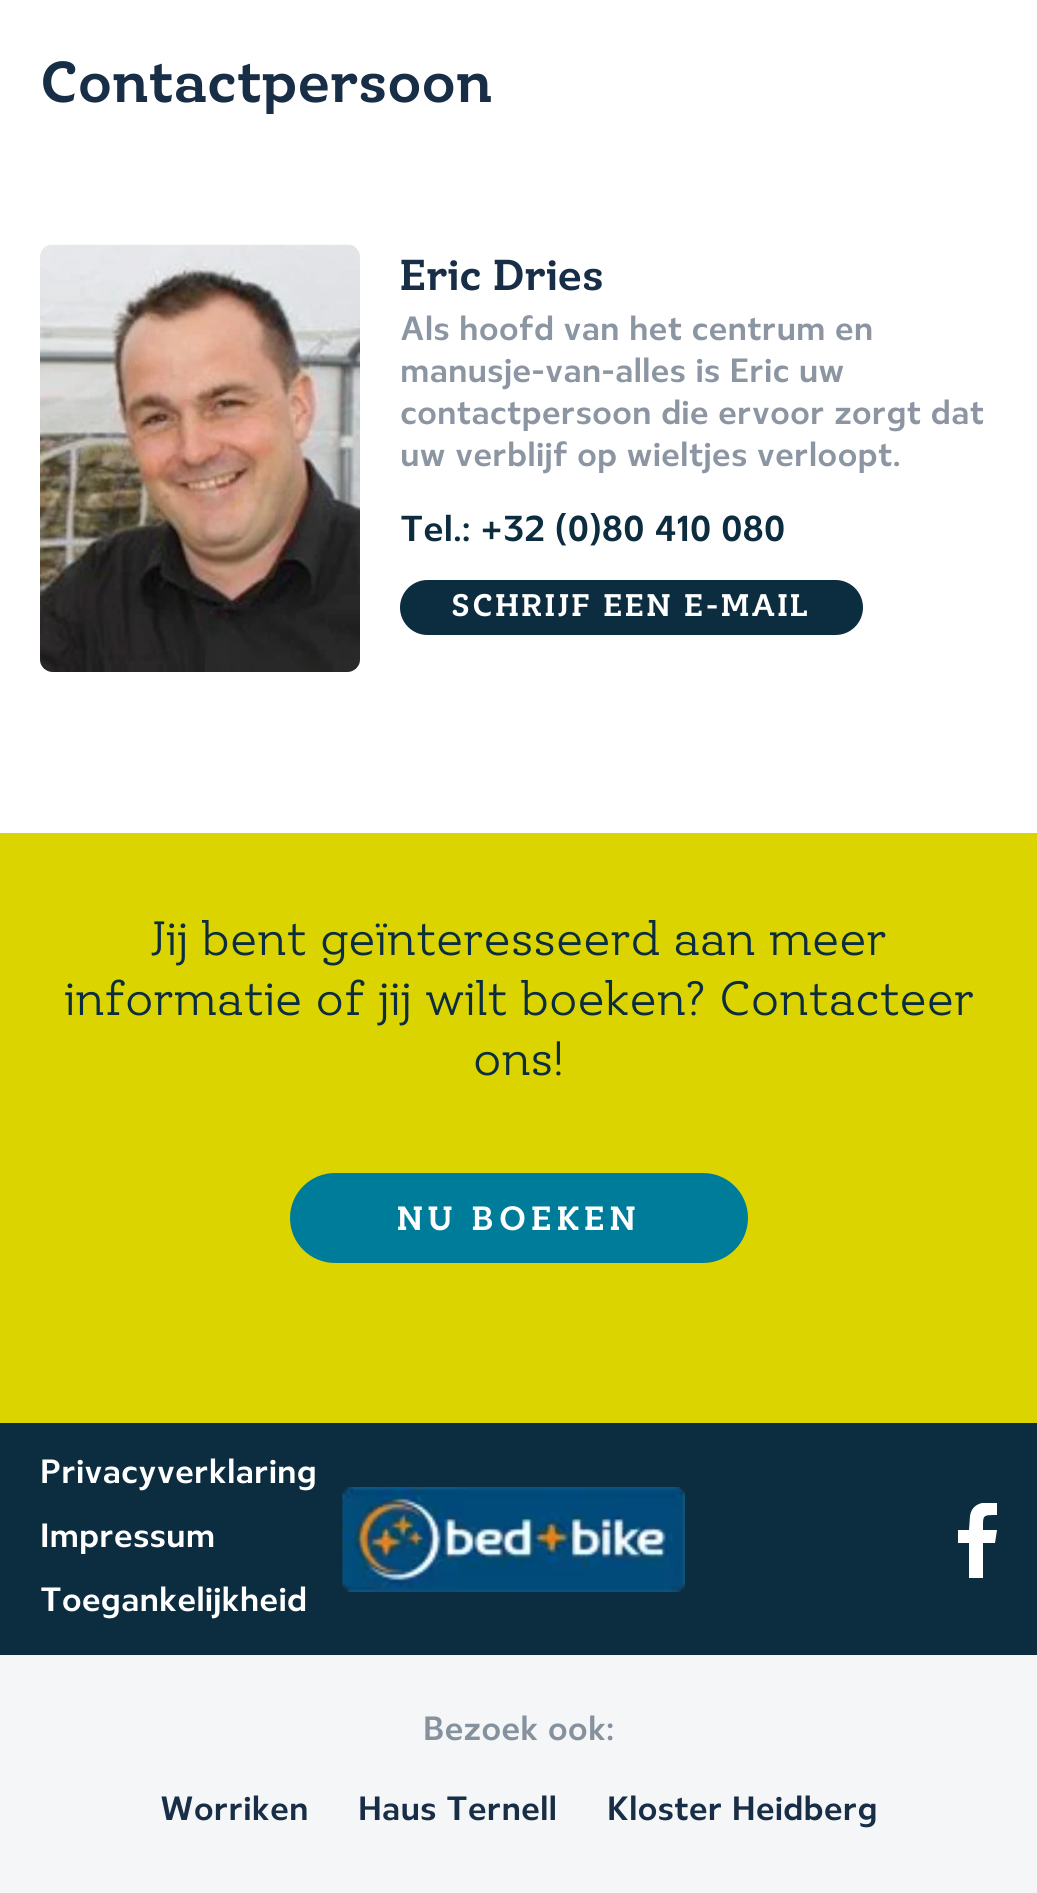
#include <cairo.h>
#include <math.h>
#include <stddef.h>


static void spaced_text(cairo_t *cr, double x, double y, const char *s, double letter, double word) {
    cairo_move_to(cr, x, y);
    while (*s) {
        char ch[5] = {0};
        int n = 0;
        do ch[n++] = *s++; while ((*s & 0xC0) == 0x80);
        cairo_show_text(cr, ch);
        cairo_rel_move_to(cr, letter + word * (*ch == ' '), 0);
    }
}

static void round_rect(cairo_t *cr, double x, double y, double w, double h, double r) {
    cairo_new_sub_path(cr);
    cairo_arc(cr, x + w - r, y + h - r, r, 0, M_PI / 2);
    cairo_arc(cr, x + r, y + h - r, r, M_PI / 2, M_PI);
    cairo_arc(cr, x + r, y + r, r, M_PI, 1.5 * M_PI);
    cairo_arc(cr, x + w - r, y + r, r, 1.5 * M_PI, 2 * M_PI);
    cairo_close_path(cr);
}

static void picture(cairo_t *cr, const char *path, double x, double y, double w, double h) {
    cairo_surface_t *image = cairo_image_surface_create_from_png(path);
    cairo_save(cr);
    cairo_set_source_surface(cr, image, x, y);
    cairo_rectangle(cr, x, y, w, h);
    cairo_fill(cr);
    cairo_restore(cr);
    cairo_surface_destroy(image);
}

int main(void) {
    cairo_surface_t *surface = cairo_image_surface_create(CAIRO_FORMAT_RGB24, 1037, 1893);
    cairo_t *cr = cairo_create(surface);
    cairo_font_options_t *options = cairo_font_options_create();
    cairo_font_options_set_hint_metrics(options, CAIRO_HINT_METRICS_OFF);
    cairo_font_options_set_hint_style(options, CAIRO_HINT_STYLE_NONE);
    cairo_set_font_options(cr, options);
    cairo_set_miter_limit(cr, 4);
    cairo_set_source_rgb(cr, 1, 1, 1);
    cairo_paint(cr);
    cairo_select_font_face(cr, "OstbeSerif", CAIRO_FONT_SLANT_NORMAL, CAIRO_FONT_WEIGHT_BOLD);
    cairo_set_font_size(cr, 60);
    cairo_set_source_rgb(cr, 0.094, 0.176, 0.275);
    cairo_move_to(cr, 40, 102);
    cairo_show_text(cr, "Contactpersoon");
    picture(cr, "img1.png", 40, 244, 320, 428);
    cairo_set_font_size(cr, 45);
    cairo_move_to(cr, 400, 290);
    cairo_show_text(cr, "Eric Dries");
    cairo_select_font_face(cr, "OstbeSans", CAIRO_FONT_SLANT_NORMAL, CAIRO_FONT_WEIGHT_BOLD);
    cairo_set_font_size(cr, 35);
    cairo_set_source_rgb(cr, 0.549, 0.588, 0.639);
    cairo_move_to(cr, 400, 340);
    cairo_show_text(cr, "Als hoofd van het centrum en");
    cairo_move_to(cr, 400, 382);
    cairo_show_text(cr, "manusje-van-alles is Eric uw");
    cairo_move_to(cr, 400, 424);
    cairo_show_text(cr, "contactpersoon die ervoor zorgt dat");
    cairo_move_to(cr, 400, 466);
    cairo_show_text(cr, "uw verblijf op wieltjes verloopt.");
    cairo_set_font_size(cr, 37.5);
    cairo_set_source_rgb(cr, 0.047, 0.176, 0.251);
    cairo_move_to(cr, 400, 541);
    cairo_show_text(cr, "Tel.: +32 (0)80 410 080");
    round_rect(cr, 400, 580, 463, 55, 27.5);
    cairo_fill(cr);
    cairo_select_font_face(cr, "OstbeSerif", CAIRO_FONT_SLANT_NORMAL, CAIRO_FONT_WEIGHT_BOLD);
    cairo_set_font_size(cr, 32.5);
    cairo_set_source_rgb(cr, 1, 1, 1);
    spaced_text(cr, 451, 616, "SCHRIJF EEN E-MAIL", 2.5, 0);
    cairo_set_source_rgb(cr, 0.863, 0.831, 0);
    cairo_rectangle(cr, 0, 833, 1037, 590);
    cairo_fill(cr);
    cairo_select_font_face(cr, "OstbeSerif", CAIRO_FONT_SLANT_NORMAL, CAIRO_FONT_WEIGHT_NORMAL);
    cairo_set_font_size(cr, 50);
    cairo_set_source_rgb(cr, 0.047, 0.176, 0.251);
    cairo_move_to(cr, 150, 955);
    cairo_show_text(cr, "Jij bent geïnteresseerd aan meer");
    cairo_move_to(cr, 64, 1015);
    cairo_show_text(cr, "informatie of jij wilt boeken? Contacteer");
    cairo_move_to(cr, 473, 1075);
    cairo_show_text(cr, "ons!");
    cairo_set_source_rgb(cr, 0, 0.486, 0.608);
    round_rect(cr, 290, 1173, 458, 90, 45);
    cairo_fill(cr);
    cairo_select_font_face(cr, "OstbeSerif", CAIRO_FONT_SLANT_NORMAL, CAIRO_FONT_WEIGHT_BOLD);
    cairo_set_font_size(cr, 35);
    cairo_set_source_rgb(cr, 1, 1, 1);
    spaced_text(cr, 397, 1230, "NU BOEKEN", 5, 0);
    cairo_set_source_rgb(cr, 0.047, 0.176, 0.251);
    cairo_rectangle(cr, 0, 1423, 1037, 232);
    cairo_fill(cr);
    cairo_select_font_face(cr, "OstbeSans", CAIRO_FONT_SLANT_NORMAL, CAIRO_FONT_WEIGHT_BOLD);
    cairo_set_source_rgb(cr, 1, 1, 1);
    cairo_move_to(cr, 40, 1483);
    cairo_show_text(cr, "Privacyverklaring");
    cairo_move_to(cr, 40, 1547);
    cairo_show_text(cr, "Impressum");
    cairo_move_to(cr, 40, 1611);
    cairo_show_text(cr, "Toegankelijkheid");
    picture(cr, "img2.png", 342, 1487, 343, 105);
    cairo_save(cr);
    cairo_rectangle(cr, 958, 1503, 40, 75);
    cairo_clip(cr);
    cairo_set_fill_rule(cr, CAIRO_FILL_RULE_EVEN_ODD);
    cairo_new_path(cr);
    cairo_move_to(cr, 997, 1503);
    cairo_line_to(cr, 997, 1515);
    cairo_curve_to(cr, 982, 1515, 983, 1515, 983, 1530);
    cairo_line_to(cr, 997, 1530);
    cairo_line_to(cr, 995, 1543);
    cairo_line_to(cr, 983, 1543);
    cairo_line_to(cr, 983, 1578);
    cairo_line_to(cr, 969, 1578);
    cairo_line_to(cr, 969, 1543);
    cairo_line_to(cr, 958, 1543);
    cairo_line_to(cr, 958, 1530);
    cairo_line_to(cr, 969, 1530);
    cairo_line_to(cr, 970, 1516);
    cairo_curve_to(cr, 972, 1502, 986, 1501, 998, 1503);
    cairo_close_path(cr);
    cairo_fill(cr);
    cairo_restore(cr);
    cairo_set_source_rgb(cr, 0.957, 0.961, 0.965);
    cairo_rectangle(cr, 0, 1655, 1037, 238);
    cairo_fill(cr);
    cairo_set_source_rgb(cr, 0.525, 0.569, 0.62);
    cairo_move_to(cr, 423, 1740);
    cairo_show_text(cr, "Bezoek ook:");
    cairo_set_source_rgb(cr, 0.094, 0.176, 0.275);
    cairo_move_to(cr, 160, 1820);
    cairo_show_text(cr, "Worriken");
    cairo_move_to(cr, 358, 1820);
    cairo_show_text(cr, "Haus Ternell");
    cairo_move_to(cr, 607, 1820);
    cairo_show_text(cr, "Kloster Heidberg");
    cairo_surface_write_to_png(surface, "page.png");
    cairo_font_options_destroy(options);
    cairo_destroy(cr);
    cairo_surface_destroy(surface);
    return 0;
}
